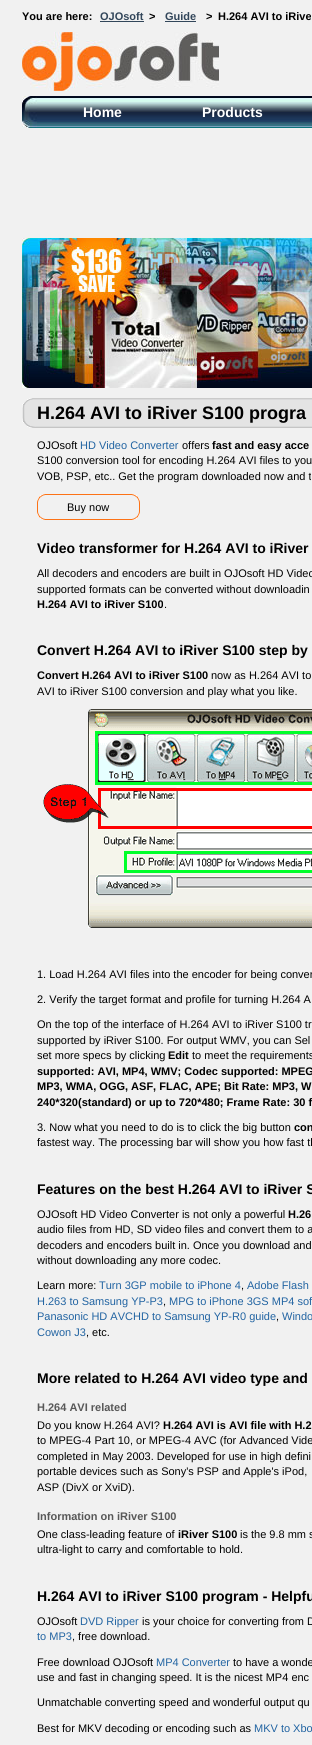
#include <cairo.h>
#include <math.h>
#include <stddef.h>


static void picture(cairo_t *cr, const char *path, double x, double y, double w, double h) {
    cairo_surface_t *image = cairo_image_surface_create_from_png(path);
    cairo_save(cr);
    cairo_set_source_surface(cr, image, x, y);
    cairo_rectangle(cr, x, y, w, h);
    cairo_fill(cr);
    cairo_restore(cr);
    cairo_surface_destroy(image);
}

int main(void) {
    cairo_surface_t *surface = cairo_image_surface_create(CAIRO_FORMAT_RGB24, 312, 1745);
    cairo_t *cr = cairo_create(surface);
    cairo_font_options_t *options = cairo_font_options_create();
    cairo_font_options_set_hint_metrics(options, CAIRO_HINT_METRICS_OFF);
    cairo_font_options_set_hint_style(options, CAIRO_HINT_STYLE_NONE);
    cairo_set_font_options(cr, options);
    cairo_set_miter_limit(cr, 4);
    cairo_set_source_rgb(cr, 0.945, 0.945, 0.945);
    cairo_paint(cr);
    cairo_select_font_face(cr, "Liberation Sans", CAIRO_FONT_SLANT_NORMAL, CAIRO_FONT_WEIGHT_BOLD);
    cairo_set_font_size(cr, 11);
    cairo_set_source_rgb(cr, 0, 0, 0);
    cairo_move_to(cr, 22, 20);
    cairo_show_text(cr, "You are here:");
    cairo_set_source_rgb(cr, 0.196, 0.275, 0.353);
    cairo_move_to(cr, 100, 20);
    cairo_show_text(cr, "OJOsoft");
    cairo_rectangle(cr, 100, 21, 44, 1);
    cairo_fill(cr);
    cairo_set_source_rgb(cr, 0, 0, 0);
    cairo_move_to(cr, 149, 20);
    cairo_show_text(cr, ">");
    cairo_set_source_rgb(cr, 0.196, 0.275, 0.353);
    cairo_move_to(cr, 165, 20);
    cairo_show_text(cr, "Guide");
    cairo_rectangle(cr, 165, 21, 31, 1);
    cairo_fill(cr);
    cairo_set_source_rgb(cr, 0, 0, 0);
    cairo_move_to(cr, 206, 20);
    cairo_show_text(cr, ">");
    cairo_move_to(cr, 218, 20);
    cairo_show_text(cr, "H.264 AVI to iRive");
    picture(cr, "img1.png", 22, 32, 197, 59);
    picture(cr, "img2.png", 22, 96, 15, 32);
    picture(cr, "img3.png", 37, 96, 275, 32);
    cairo_set_font_size(cr, 14);
    cairo_set_source_rgb(cr, 1, 1, 1);
    cairo_move_to(cr, 83, 117);
    cairo_show_text(cr, "Home");
    cairo_move_to(cr, 202, 117);
    cairo_show_text(cr, "Products");
    picture(cr, "img4.png", 22, 238, 290, 150);
    picture(cr, "img5.png", 22, 398, 15, 30);
    picture(cr, "img6.png", 37, 398, 275, 30);
    cairo_set_font_size(cr, 18);
    cairo_set_source_rgb(cr, 0, 0, 0);
    cairo_move_to(cr, 37, 419);
    cairo_show_text(cr, "H.264 AVI to iRiver S100 progra");
    cairo_select_font_face(cr, "Liberation Sans", CAIRO_FONT_SLANT_NORMAL, CAIRO_FONT_WEIGHT_NORMAL);
    cairo_set_font_size(cr, 11);
    cairo_move_to(cr, 37, 449);
    cairo_show_text(cr, "OJOsoft");
    cairo_set_source_rgb(cr, 0.133, 0.392, 0.635);
    cairo_move_to(cr, 80, 449);
    cairo_show_text(cr, "HD Video Converter");
    cairo_set_source_rgb(cr, 0, 0, 0);
    cairo_move_to(cr, 182, 449);
    cairo_show_text(cr, "offers");
    cairo_select_font_face(cr, "Liberation Sans", CAIRO_FONT_SLANT_NORMAL, CAIRO_FONT_WEIGHT_BOLD);
    cairo_move_to(cr, 212, 449);
    cairo_show_text(cr, "fast and easy acce");
    cairo_select_font_face(cr, "Liberation Sans", CAIRO_FONT_SLANT_NORMAL, CAIRO_FONT_WEIGHT_NORMAL);
    cairo_move_to(cr, 37, 464);
    cairo_show_text(cr, "S100 conversion tool for encoding H.264 AVI files to you");
    cairo_move_to(cr, 37, 480);
    cairo_show_text(cr, "VOB, PSP, etc.. Get the program downloaded now and t");
    picture(cr, "img7.png", 37, 494, 103, 26);
    cairo_move_to(cr, 67, 511);
    cairo_show_text(cr, "Buy now");
    cairo_select_font_face(cr, "Liberation Sans", CAIRO_FONT_SLANT_NORMAL, CAIRO_FONT_WEIGHT_BOLD);
    cairo_set_font_size(cr, 14);
    cairo_move_to(cr, 37, 553);
    cairo_show_text(cr, "Video transformer for H.264 AVI to iRiver");
    cairo_select_font_face(cr, "Liberation Sans", CAIRO_FONT_SLANT_NORMAL, CAIRO_FONT_WEIGHT_NORMAL);
    cairo_set_font_size(cr, 11);
    cairo_move_to(cr, 37, 577);
    cairo_show_text(cr, "All decoders and encoders are built in OJOsoft HD Video");
    cairo_move_to(cr, 37, 593);
    cairo_show_text(cr, "supported formats can be converted without downloadin");
    cairo_select_font_face(cr, "Liberation Sans", CAIRO_FONT_SLANT_NORMAL, CAIRO_FONT_WEIGHT_BOLD);
    cairo_move_to(cr, 37, 608);
    cairo_show_text(cr, "H.264 AVI to iRiver S100");
    cairo_select_font_face(cr, "Liberation Sans", CAIRO_FONT_SLANT_NORMAL, CAIRO_FONT_WEIGHT_NORMAL);
    cairo_move_to(cr, 164, 608);
    cairo_show_text(cr, ".");
    cairo_select_font_face(cr, "Liberation Sans", CAIRO_FONT_SLANT_NORMAL, CAIRO_FONT_WEIGHT_BOLD);
    cairo_set_font_size(cr, 14);
    cairo_move_to(cr, 37, 655);
    cairo_show_text(cr, "Convert H.264 AVI to iRiver S100 step by");
    cairo_set_font_size(cr, 11);
    cairo_move_to(cr, 37, 679);
    cairo_show_text(cr, "Convert H.264 AVI to iRiver S100");
    cairo_select_font_face(cr, "Liberation Sans", CAIRO_FONT_SLANT_NORMAL, CAIRO_FONT_WEIGHT_NORMAL);
    cairo_move_to(cr, 211, 679);
    cairo_show_text(cr, "now as H.264 AVI to");
    cairo_move_to(cr, 37, 695);
    cairo_show_text(cr, "AVI to iRiver S100 conversion and play what you like.");
    picture(cr, "img8.png", 43, 709, 269, 219);
    cairo_move_to(cr, 37, 978);
    cairo_show_text(cr, "1. Load H.264 AVI files into the encoder for being conver");
    cairo_move_to(cr, 37, 1003);
    cairo_show_text(cr, "2. Verify the target format and profile for turning H.264 A");
    cairo_move_to(cr, 37, 1028);
    cairo_show_text(cr, "On the top of the interface of H.264 AVI to iRiver S100 tr");
    cairo_move_to(cr, 37, 1044);
    cairo_show_text(cr, "supported by iRiver S100. For output WMV, you can Sel");
    cairo_move_to(cr, 37, 1059);
    cairo_show_text(cr, "set more specs by clicking");
    cairo_select_font_face(cr, "Liberation Sans", CAIRO_FONT_SLANT_NORMAL, CAIRO_FONT_WEIGHT_BOLD);
    cairo_move_to(cr, 168, 1059);
    cairo_show_text(cr, "Edit");
    cairo_select_font_face(cr, "Liberation Sans", CAIRO_FONT_SLANT_NORMAL, CAIRO_FONT_WEIGHT_NORMAL);
    cairo_move_to(cr, 192, 1059);
    cairo_show_text(cr, "to meet the requirements");
    cairo_select_font_face(cr, "Liberation Sans", CAIRO_FONT_SLANT_NORMAL, CAIRO_FONT_WEIGHT_BOLD);
    cairo_move_to(cr, 37, 1075);
    cairo_show_text(cr, "supported: AVI, MP4, WMV; Codec supported: MPEG");
    cairo_move_to(cr, 37, 1090);
    cairo_show_text(cr, "MP3, WMA, OGG, ASF, FLAC, APE; Bit Rate: MP3, W");
    cairo_move_to(cr, 37, 1106);
    cairo_show_text(cr, "240*320(standard) or up to 720*480; Frame Rate: 30 f");
    cairo_select_font_face(cr, "Liberation Sans", CAIRO_FONT_SLANT_NORMAL, CAIRO_FONT_WEIGHT_NORMAL);
    cairo_move_to(cr, 37, 1131);
    cairo_show_text(cr, "3. Now what you need to do is to click the big button");
    cairo_select_font_face(cr, "Liberation Sans", CAIRO_FONT_SLANT_NORMAL, CAIRO_FONT_WEIGHT_BOLD);
    cairo_move_to(cr, 294, 1131);
    cairo_show_text(cr, "con");
    cairo_select_font_face(cr, "Liberation Sans", CAIRO_FONT_SLANT_NORMAL, CAIRO_FONT_WEIGHT_NORMAL);
    cairo_move_to(cr, 37, 1146);
    cairo_show_text(cr, "fastest way. The processing bar will show you how fast th");
    cairo_select_font_face(cr, "Liberation Sans", CAIRO_FONT_SLANT_NORMAL, CAIRO_FONT_WEIGHT_BOLD);
    cairo_set_font_size(cr, 14);
    cairo_move_to(cr, 37, 1194);
    cairo_show_text(cr, "Features on the best H.264 AVI to iRiver S");
    cairo_select_font_face(cr, "Liberation Sans", CAIRO_FONT_SLANT_NORMAL, CAIRO_FONT_WEIGHT_NORMAL);
    cairo_set_font_size(cr, 11);
    cairo_move_to(cr, 37, 1218);
    cairo_show_text(cr, "OJOsoft HD Video Converter is not only a powerful");
    cairo_select_font_face(cr, "Liberation Sans", CAIRO_FONT_SLANT_NORMAL, CAIRO_FONT_WEIGHT_BOLD);
    cairo_move_to(cr, 288, 1218);
    cairo_show_text(cr, "H.26");
    cairo_select_font_face(cr, "Liberation Sans", CAIRO_FONT_SLANT_NORMAL, CAIRO_FONT_WEIGHT_NORMAL);
    cairo_move_to(cr, 37, 1233);
    cairo_show_text(cr, "audio files from HD, SD video files and convert them to a");
    cairo_move_to(cr, 37, 1249);
    cairo_show_text(cr, "decoders and encoders built in. Once you download and");
    cairo_move_to(cr, 37, 1264);
    cairo_show_text(cr, "without downloading any more codec.");
    cairo_move_to(cr, 37, 1289);
    cairo_show_text(cr, "Learn more:");
    cairo_set_source_rgb(cr, 0.133, 0.392, 0.635);
    cairo_move_to(cr, 99, 1289);
    cairo_show_text(cr, "Turn 3GP mobile to iPhone 4");
    cairo_set_source_rgb(cr, 0, 0, 0);
    cairo_move_to(cr, 241, 1289);
    cairo_show_text(cr, ",");
    cairo_set_source_rgb(cr, 0.133, 0.392, 0.635);
    cairo_move_to(cr, 247, 1289);
    cairo_show_text(cr, "Adobe Flash");
    cairo_move_to(cr, 37, 1305);
    cairo_show_text(cr, "H.263 to Samsung YP-P3");
    cairo_set_source_rgb(cr, 0, 0, 0);
    cairo_move_to(cr, 163, 1305);
    cairo_show_text(cr, ",");
    cairo_set_source_rgb(cr, 0.133, 0.392, 0.635);
    cairo_move_to(cr, 169, 1305);
    cairo_show_text(cr, "MPG to iPhone 3GS MP4 sof");
    cairo_move_to(cr, 37, 1320);
    cairo_show_text(cr, "Panasonic HD AVCHD to Samsung YP-R0 guide");
    cairo_set_source_rgb(cr, 0, 0, 0);
    cairo_move_to(cr, 276, 1320);
    cairo_show_text(cr, ",");
    cairo_set_source_rgb(cr, 0.133, 0.392, 0.635);
    cairo_move_to(cr, 282, 1320);
    cairo_show_text(cr, "Windo");
    cairo_move_to(cr, 37, 1336);
    cairo_show_text(cr, "Cowon J3");
    cairo_set_source_rgb(cr, 0, 0, 0);
    cairo_move_to(cr, 86, 1336);
    cairo_show_text(cr, ", etc.");
    cairo_select_font_face(cr, "Liberation Sans", CAIRO_FONT_SLANT_NORMAL, CAIRO_FONT_WEIGHT_BOLD);
    cairo_set_font_size(cr, 14);
    cairo_move_to(cr, 37, 1383);
    cairo_show_text(cr, "More related to H.264 AVI video type and");
    cairo_set_font_size(cr, 11);
    cairo_set_source_rgb(cr, 0.345, 0.345, 0.345);
    cairo_move_to(cr, 37, 1411);
    cairo_show_text(cr, "H.264 AVI related");
    cairo_select_font_face(cr, "Liberation Sans", CAIRO_FONT_SLANT_NORMAL, CAIRO_FONT_WEIGHT_NORMAL);
    cairo_set_source_rgb(cr, 0, 0, 0);
    cairo_move_to(cr, 37, 1429);
    cairo_show_text(cr, "Do you know H.264 AVI?");
    cairo_select_font_face(cr, "Liberation Sans", CAIRO_FONT_SLANT_NORMAL, CAIRO_FONT_WEIGHT_BOLD);
    cairo_move_to(cr, 163, 1429);
    cairo_show_text(cr, "H.264 AVI is AVI file with H.2");
    cairo_select_font_face(cr, "Liberation Sans", CAIRO_FONT_SLANT_NORMAL, CAIRO_FONT_WEIGHT_NORMAL);
    cairo_move_to(cr, 37, 1444);
    cairo_show_text(cr, "to MPEG-4 Part 10, or MPEG-4 AVC (for Advanced Vide");
    cairo_move_to(cr, 37, 1460);
    cairo_show_text(cr, "completed in May 2003. Developed for use in high defini");
    cairo_move_to(cr, 37, 1475);
    cairo_show_text(cr, "portable devices such as Sony's PSP and Apple's iPod,");
    cairo_move_to(cr, 37, 1491);
    cairo_show_text(cr, "ASP (DivX or XviD).");
    cairo_select_font_face(cr, "Liberation Sans", CAIRO_FONT_SLANT_NORMAL, CAIRO_FONT_WEIGHT_BOLD);
    cairo_set_source_rgb(cr, 0.345, 0.345, 0.345);
    cairo_move_to(cr, 37, 1520);
    cairo_show_text(cr, "Information on iRiver S100");
    cairo_select_font_face(cr, "Liberation Sans", CAIRO_FONT_SLANT_NORMAL, CAIRO_FONT_WEIGHT_NORMAL);
    cairo_set_source_rgb(cr, 0, 0, 0);
    cairo_move_to(cr, 37, 1538);
    cairo_show_text(cr, "One class-leading feature of");
    cairo_select_font_face(cr, "Liberation Sans", CAIRO_FONT_SLANT_NORMAL, CAIRO_FONT_WEIGHT_BOLD);
    cairo_move_to(cr, 178, 1538);
    cairo_show_text(cr, "iRiver S100");
    cairo_select_font_face(cr, "Liberation Sans", CAIRO_FONT_SLANT_NORMAL, CAIRO_FONT_WEIGHT_NORMAL);
    cairo_move_to(cr, 240, 1538);
    cairo_show_text(cr, "is the 9.8 mm s");
    cairo_move_to(cr, 37, 1553);
    cairo_show_text(cr, "ultra-light to carry and comfortable to hold.");
    cairo_select_font_face(cr, "Liberation Sans", CAIRO_FONT_SLANT_NORMAL, CAIRO_FONT_WEIGHT_BOLD);
    cairo_set_font_size(cr, 14);
    cairo_move_to(cr, 37, 1601);
    cairo_show_text(cr, "H.264 AVI to iRiver S100 program - Helpfu");
    cairo_select_font_face(cr, "Liberation Sans", CAIRO_FONT_SLANT_NORMAL, CAIRO_FONT_WEIGHT_NORMAL);
    cairo_set_font_size(cr, 11);
    cairo_move_to(cr, 37, 1625);
    cairo_show_text(cr, "OJOsoft");
    cairo_set_source_rgb(cr, 0.133, 0.392, 0.635);
    cairo_move_to(cr, 80, 1625);
    cairo_show_text(cr, "DVD Ripper");
    cairo_set_source_rgb(cr, 0, 0, 0);
    cairo_move_to(cr, 142, 1625);
    cairo_show_text(cr, "is your choice for converting from D");
    cairo_set_source_rgb(cr, 0.133, 0.392, 0.635);
    cairo_move_to(cr, 37, 1640);
    cairo_show_text(cr, "to MP3");
    cairo_set_source_rgb(cr, 0, 0, 0);
    cairo_move_to(cr, 72, 1640);
    cairo_show_text(cr, ", free download.");
    cairo_move_to(cr, 37, 1666);
    cairo_show_text(cr, "Free download OJOsoft");
    cairo_set_source_rgb(cr, 0.133, 0.392, 0.635);
    cairo_move_to(cr, 156, 1666);
    cairo_show_text(cr, "MP4 Converter");
    cairo_set_source_rgb(cr, 0, 0, 0);
    cairo_move_to(cr, 233, 1666);
    cairo_show_text(cr, "to have a wonde");
    cairo_move_to(cr, 37, 1681);
    cairo_show_text(cr, "use and fast in changing speed. It is the nicest MP4 enc");
    cairo_move_to(cr, 37, 1706);
    cairo_show_text(cr, "Unmatchable converting speed and wonderful output qu");
    cairo_move_to(cr, 37, 1732);
    cairo_show_text(cr, "Best for MKV decoding or encoding such as");
    cairo_set_source_rgb(cr, 0.133, 0.392, 0.635);
    cairo_move_to(cr, 254, 1732);
    cairo_show_text(cr, "MKV to Xbo");
    cairo_surface_write_to_png(surface, "page.png");
    cairo_font_options_destroy(options);
    cairo_destroy(cr);
    cairo_surface_destroy(surface);
    return 0;
}
